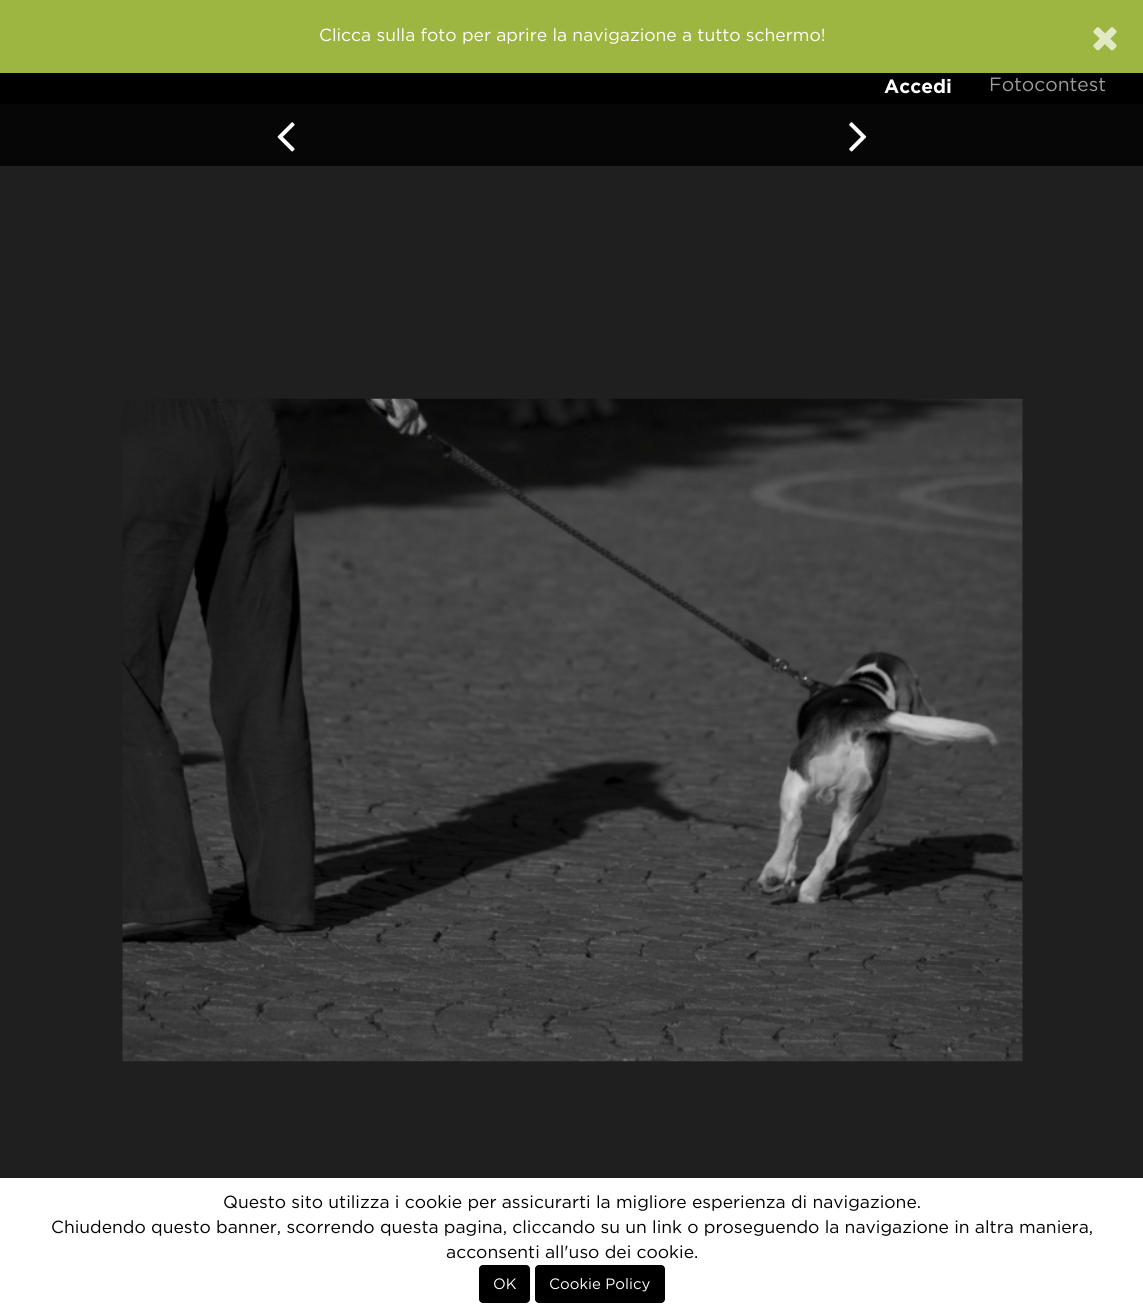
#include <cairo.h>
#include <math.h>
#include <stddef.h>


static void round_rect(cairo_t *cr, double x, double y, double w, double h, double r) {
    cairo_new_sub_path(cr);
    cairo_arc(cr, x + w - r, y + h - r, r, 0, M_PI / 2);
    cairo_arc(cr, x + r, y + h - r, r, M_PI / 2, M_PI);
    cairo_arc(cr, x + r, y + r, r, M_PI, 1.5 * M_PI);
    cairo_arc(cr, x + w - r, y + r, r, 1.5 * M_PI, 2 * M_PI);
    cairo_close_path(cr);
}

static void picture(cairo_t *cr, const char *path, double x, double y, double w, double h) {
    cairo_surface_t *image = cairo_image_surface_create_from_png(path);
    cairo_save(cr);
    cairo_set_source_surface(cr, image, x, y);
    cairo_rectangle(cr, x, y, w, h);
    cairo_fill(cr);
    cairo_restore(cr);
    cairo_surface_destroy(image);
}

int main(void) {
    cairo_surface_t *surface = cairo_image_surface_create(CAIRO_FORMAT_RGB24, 1143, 1314);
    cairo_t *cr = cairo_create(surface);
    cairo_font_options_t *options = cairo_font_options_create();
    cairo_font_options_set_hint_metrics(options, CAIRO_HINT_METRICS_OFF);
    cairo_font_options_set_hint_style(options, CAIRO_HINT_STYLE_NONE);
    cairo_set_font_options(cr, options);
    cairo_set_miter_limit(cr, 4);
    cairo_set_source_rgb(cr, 0.122, 0.122, 0.122);
    cairo_paint(cr);
    cairo_set_source_rgb(cr, 0.612, 0.714, 0.255);
    cairo_rectangle(cr, 0, 0, 1143, 73);
    cairo_fill(cr);
    cairo_select_font_face(cr, "Gotham", CAIRO_FONT_SLANT_NORMAL, CAIRO_FONT_WEIGHT_NORMAL);
    cairo_set_font_size(cr, 17.5);
    cairo_set_source_rgb(cr, 1, 1, 1);
    cairo_move_to(cr, 319, 41);
    cairo_show_text(cr, "Clicca sulla foto per aprire la navigazione a tutto schermo!");
    picture(cr, "img1.png", 1093, 27, 24, 24);
    cairo_set_source_rgb(cr, 0.024, 0.024, 0.024);
    cairo_rectangle(cr, 0, 104, 1143, 62);
    cairo_fill(cr);
    picture(cr, "img2.png", 277, 122, 18, 30);
    picture(cr, "img3.png", 849, 122, 18, 30);
    picture(cr, "img4.png", 122, 398, 901, 664);
    cairo_set_source_rgb(cr, 0, 0, 0);
    cairo_rectangle(cr, 0, 73, 1143, 31);
    cairo_fill(cr);
    cairo_select_font_face(cr, "Gotham", CAIRO_FONT_SLANT_NORMAL, CAIRO_FONT_WEIGHT_BOLD);
    cairo_set_font_size(cr, 19.25);
    cairo_set_source_rgb(cr, 1, 1, 1);
    cairo_move_to(cr, 884, 93);
    cairo_show_text(cr, "Accedi");
    cairo_select_font_face(cr, "Gotham", CAIRO_FONT_SLANT_NORMAL, CAIRO_FONT_WEIGHT_NORMAL);
    cairo_set_source_rgb(cr, 0.616, 0.616, 0.616);
    cairo_move_to(cr, 989, 91);
    cairo_show_text(cr, "Fotocontest");
    cairo_set_source_rgb(cr, 1, 1, 1);
    cairo_rectangle(cr, 0, 1178, 1143, 136);
    cairo_fill(cr);
    cairo_set_font_size(cr, 17.5);
    cairo_set_source_rgb(cr, 0, 0, 0);
    cairo_move_to(cr, 223, 1208);
    cairo_show_text(cr, "Questo sito utilizza i cookie per assicurarti la migliore esperienza di navigazione.");
    cairo_move_to(cr, 51, 1233);
    cairo_show_text(cr, "Chiudendo questo banner, scorrendo questa pagina, cliccando su un link o proseguendo la navigazione in altra maniera,");
    cairo_move_to(cr, 446, 1258);
    cairo_show_text(cr, "acconsenti all'uso dei cookie.");
    round_rect(cr, 479, 1265, 51, 38, 4);
    cairo_fill(cr);
    cairo_set_font_size(cr, 15);
    cairo_set_source_rgb(cr, 1, 1, 1);
    cairo_move_to(cr, 493, 1289);
    cairo_show_text(cr, "OK");
    cairo_set_source_rgb(cr, 0, 0, 0);
    round_rect(cr, 535, 1265, 130, 38, 4);
    cairo_fill(cr);
    cairo_set_source_rgb(cr, 1, 1, 1);
    cairo_move_to(cr, 549, 1289);
    cairo_show_text(cr, "Cookie Policy");
    cairo_surface_write_to_png(surface, "page.png");
    cairo_font_options_destroy(options);
    cairo_destroy(cr);
    cairo_surface_destroy(surface);
    return 0;
}
